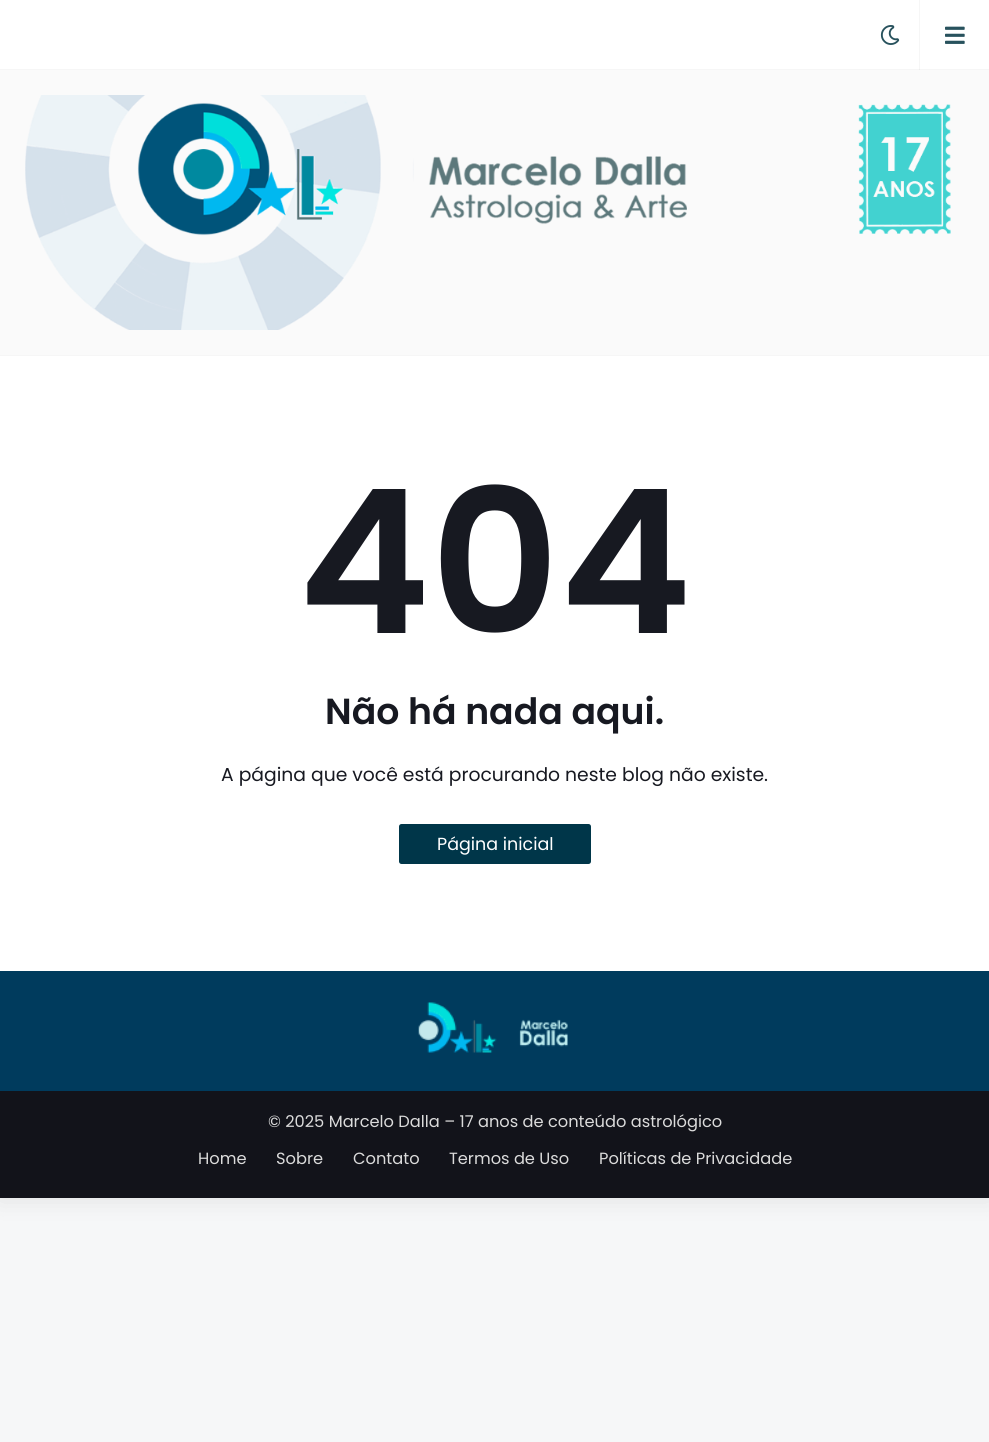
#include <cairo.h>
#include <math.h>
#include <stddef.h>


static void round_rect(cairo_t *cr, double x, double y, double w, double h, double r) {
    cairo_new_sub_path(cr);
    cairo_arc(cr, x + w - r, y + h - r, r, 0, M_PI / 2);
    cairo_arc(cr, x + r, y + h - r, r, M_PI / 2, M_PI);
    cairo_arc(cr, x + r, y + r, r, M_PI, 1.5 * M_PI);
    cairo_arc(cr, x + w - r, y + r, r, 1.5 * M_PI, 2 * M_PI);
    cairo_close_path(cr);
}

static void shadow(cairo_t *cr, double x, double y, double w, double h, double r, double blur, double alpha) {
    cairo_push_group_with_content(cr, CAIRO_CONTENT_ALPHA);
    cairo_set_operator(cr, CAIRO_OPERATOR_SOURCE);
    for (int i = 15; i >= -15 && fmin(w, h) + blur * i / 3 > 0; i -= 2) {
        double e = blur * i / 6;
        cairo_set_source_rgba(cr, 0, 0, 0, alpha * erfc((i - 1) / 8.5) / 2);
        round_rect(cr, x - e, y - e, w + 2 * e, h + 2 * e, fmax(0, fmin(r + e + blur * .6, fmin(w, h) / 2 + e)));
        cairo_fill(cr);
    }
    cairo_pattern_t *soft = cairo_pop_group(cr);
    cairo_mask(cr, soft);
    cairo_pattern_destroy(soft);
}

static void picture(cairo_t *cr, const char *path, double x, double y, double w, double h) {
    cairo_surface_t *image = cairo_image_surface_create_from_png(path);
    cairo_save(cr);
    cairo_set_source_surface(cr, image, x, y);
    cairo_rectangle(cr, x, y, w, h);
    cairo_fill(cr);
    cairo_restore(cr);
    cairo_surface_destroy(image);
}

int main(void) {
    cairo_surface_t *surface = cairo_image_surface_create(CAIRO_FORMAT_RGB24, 989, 1442);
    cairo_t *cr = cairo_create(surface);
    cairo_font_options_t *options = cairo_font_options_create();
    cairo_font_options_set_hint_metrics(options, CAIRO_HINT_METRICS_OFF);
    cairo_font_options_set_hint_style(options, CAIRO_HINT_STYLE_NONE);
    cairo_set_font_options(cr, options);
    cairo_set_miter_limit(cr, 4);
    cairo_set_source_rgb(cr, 0.961, 0.965, 0.969);
    cairo_paint(cr);
    cairo_set_source_rgb(cr, 0, 0, 0);
    shadow(cr, 0, 0, 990, 1198, 0, 12.5, 0.1);
    cairo_set_source_rgb(cr, 1, 1, 1);
    cairo_rectangle(cr, 0, 0, 989, 971);
    cairo_fill(cr);
    cairo_set_source_rgb(cr, 0.961, 0.961, 0.961);
    cairo_rectangle(cr, 919, 0, 1, 70);
    cairo_fill(cr);
    cairo_rectangle(cr, 0, 69, 989, 1);
    cairo_fill(cr);
    cairo_set_source_rgb(cr, 0.925, 0.925, 0.925);
    cairo_rectangle(cr, 919, 69, 1, 1);
    cairo_fill(cr);
    picture(cr, "img1.png", 880, 25, 20, 20);
    picture(cr, "img2.png", 945, 26, 20, 18);
    cairo_set_source_rgb(cr, 0.961, 0.961, 0.961);
    cairo_rectangle(cr, 0, 355, 989, 1);
    cairo_fill(cr);
    cairo_set_source_rgb(cr, 0.98, 0.98, 0.98);
    cairo_rectangle(cr, 0, 70, 989, 285);
    cairo_fill(cr);
    picture(cr, "img3.png", 25, 95, 926, 235);
    cairo_select_font_face(cr, "Poppins SemiBold", CAIRO_FONT_SLANT_NORMAL, CAIRO_FONT_WEIGHT_NORMAL);
    cairo_set_font_size(cr, 200);
    cairo_set_source_rgb(cr, 0.09, 0.098, 0.129);
    cairo_move_to(cr, 298, 633);
    cairo_show_text(cr, "404");
    cairo_set_font_size(cr, 36.25);
    cairo_move_to(cr, 325, 724);
    cairo_show_text(cr, "Não há nada aqui.");
    cairo_select_font_face(cr, "Poppins", CAIRO_FONT_SLANT_NORMAL, CAIRO_FONT_WEIGHT_NORMAL);
    cairo_set_font_size(cr, 18.75);
    cairo_move_to(cr, 221, 781);
    cairo_show_text(cr, "A página que você está procurando neste blog não existe.");
    cairo_set_source_rgb(cr, 0, 0.212, 0.286);
    round_rect(cr, 399, 824, 192, 40, 2.5);
    cairo_fill(cr);
    cairo_set_font_size(cr, 17.5);
    cairo_set_source_rgb(cr, 1, 1, 1);
    cairo_move_to(cr, 437, 850);
    cairo_show_text(cr, "Página inicial");
    cairo_set_source_rgb(cr, 0, 0.231, 0.365);
    cairo_rectangle(cr, 0, 971, 989, 120);
    cairo_fill(cr);
    picture(cr, "img4.png", 418, 1002, 150, 51);
    cairo_set_source_rgb(cr, 0.071, 0.078, 0.102);
    cairo_rectangle(cr, 0, 1091, 989, 107);
    cairo_fill(cr);
    cairo_set_font_size(cr, 16.25);
    cairo_set_source_rgb(cr, 0.859, 0.859, 0.859);
    cairo_move_to(cr, 268, 1127);
    cairo_show_text(cr, "© 2025 Marcelo Dalla – 17 anos de conteúdo astrológico");
    cairo_move_to(cr, 198, 1164);
    cairo_show_text(cr, "Home");
    cairo_move_to(cr, 276, 1164);
    cairo_show_text(cr, "Sobre");
    cairo_move_to(cr, 353, 1164);
    cairo_show_text(cr, "Contato");
    cairo_move_to(cr, 449, 1164);
    cairo_show_text(cr, "Termos de Uso");
    cairo_move_to(cr, 599, 1164);
    cairo_show_text(cr, "Políticas de Privacidade");
    cairo_surface_write_to_png(surface, "page.png");
    cairo_font_options_destroy(options);
    cairo_destroy(cr);
    cairo_surface_destroy(surface);
    return 0;
}
